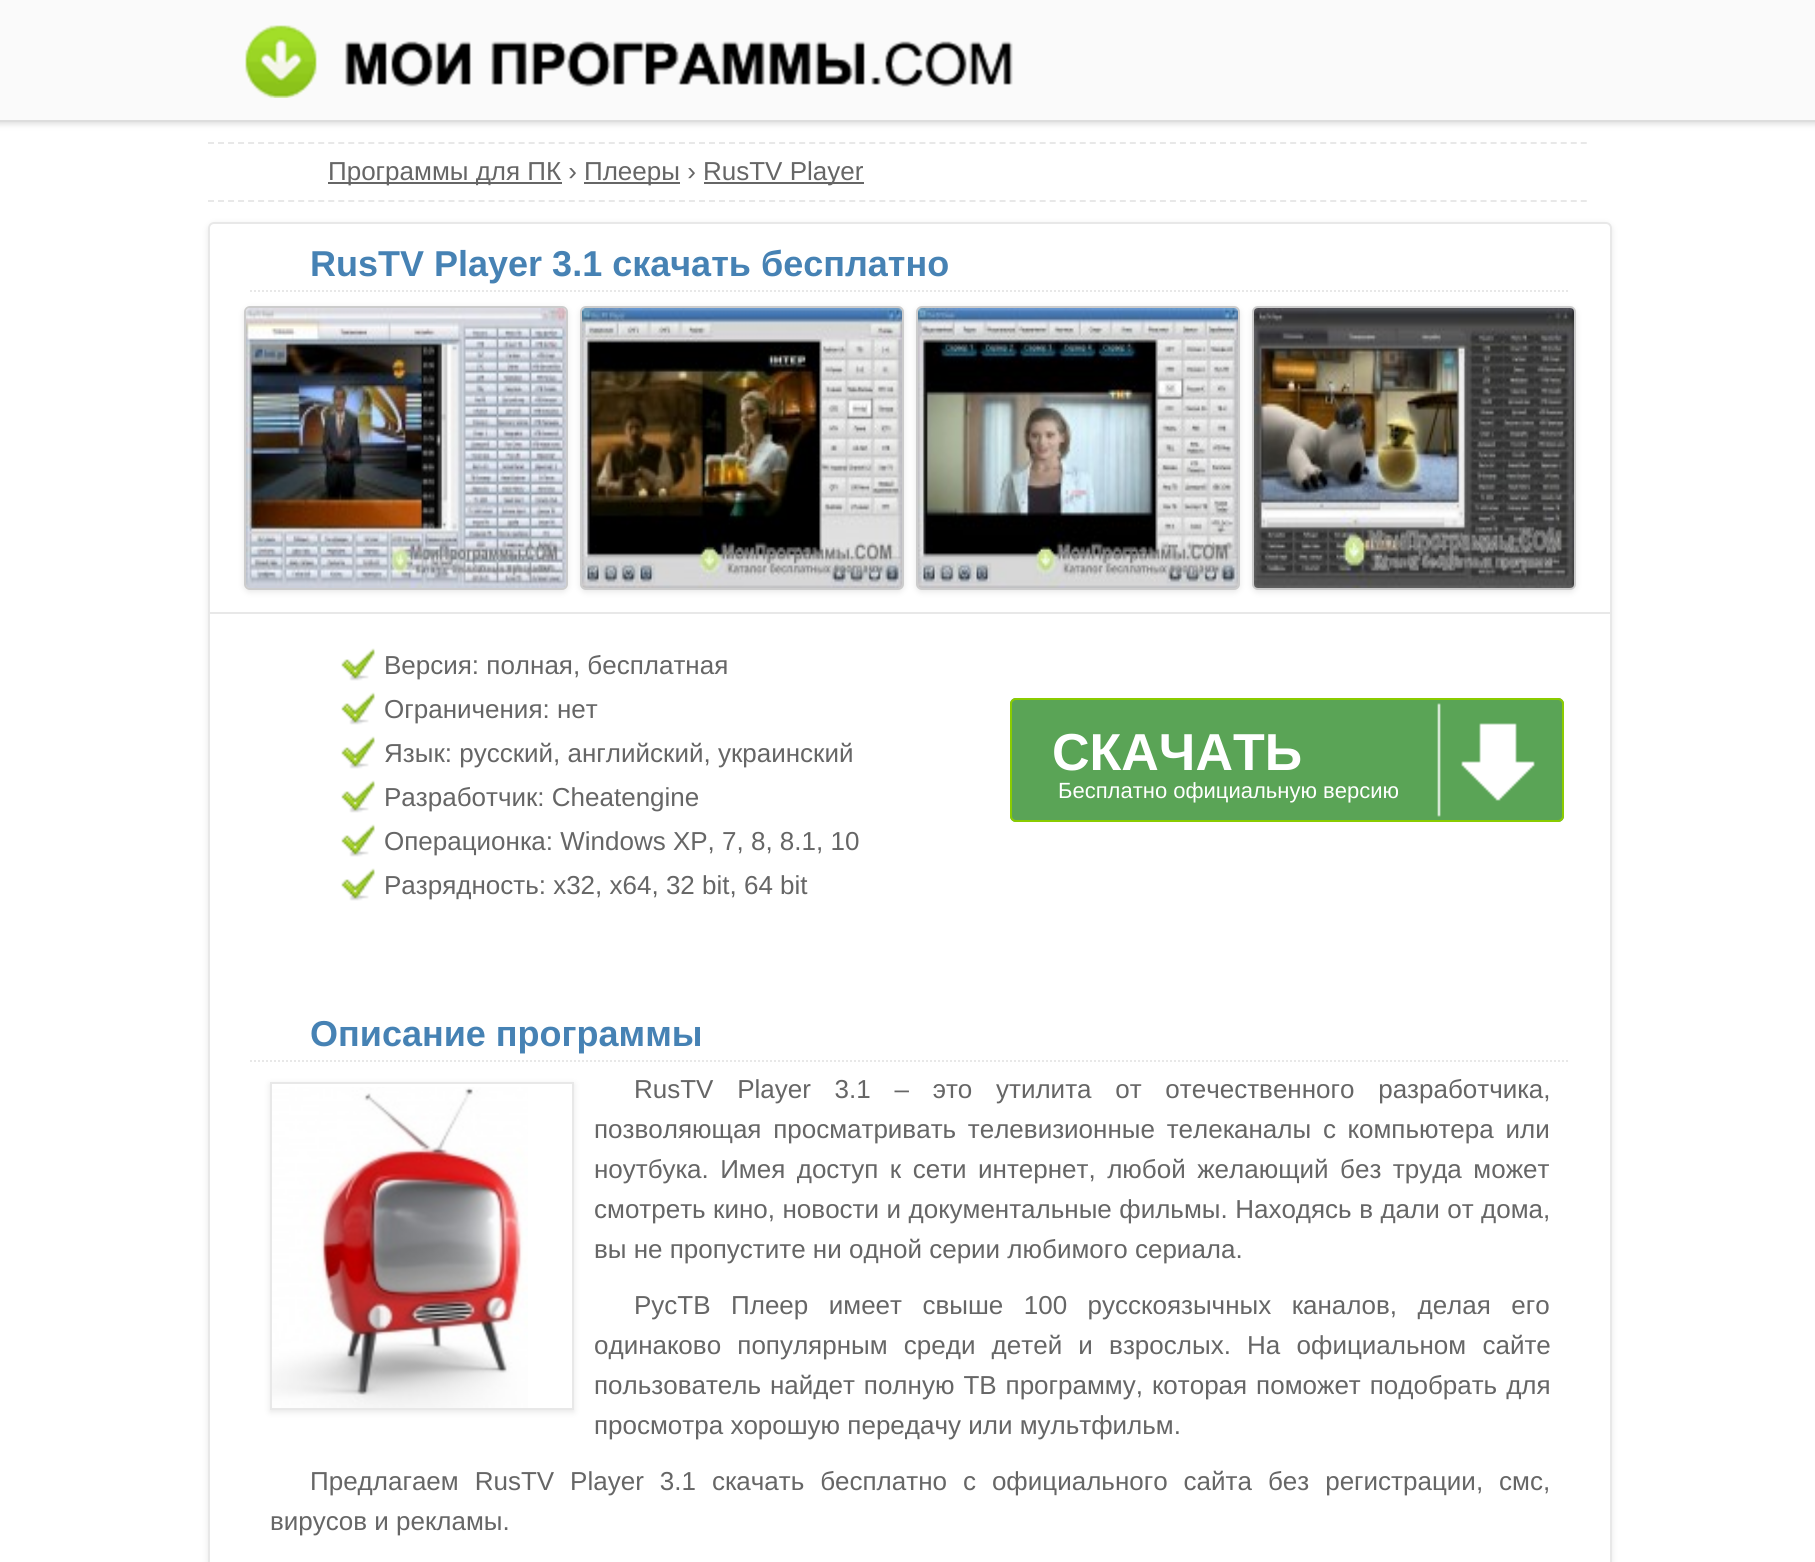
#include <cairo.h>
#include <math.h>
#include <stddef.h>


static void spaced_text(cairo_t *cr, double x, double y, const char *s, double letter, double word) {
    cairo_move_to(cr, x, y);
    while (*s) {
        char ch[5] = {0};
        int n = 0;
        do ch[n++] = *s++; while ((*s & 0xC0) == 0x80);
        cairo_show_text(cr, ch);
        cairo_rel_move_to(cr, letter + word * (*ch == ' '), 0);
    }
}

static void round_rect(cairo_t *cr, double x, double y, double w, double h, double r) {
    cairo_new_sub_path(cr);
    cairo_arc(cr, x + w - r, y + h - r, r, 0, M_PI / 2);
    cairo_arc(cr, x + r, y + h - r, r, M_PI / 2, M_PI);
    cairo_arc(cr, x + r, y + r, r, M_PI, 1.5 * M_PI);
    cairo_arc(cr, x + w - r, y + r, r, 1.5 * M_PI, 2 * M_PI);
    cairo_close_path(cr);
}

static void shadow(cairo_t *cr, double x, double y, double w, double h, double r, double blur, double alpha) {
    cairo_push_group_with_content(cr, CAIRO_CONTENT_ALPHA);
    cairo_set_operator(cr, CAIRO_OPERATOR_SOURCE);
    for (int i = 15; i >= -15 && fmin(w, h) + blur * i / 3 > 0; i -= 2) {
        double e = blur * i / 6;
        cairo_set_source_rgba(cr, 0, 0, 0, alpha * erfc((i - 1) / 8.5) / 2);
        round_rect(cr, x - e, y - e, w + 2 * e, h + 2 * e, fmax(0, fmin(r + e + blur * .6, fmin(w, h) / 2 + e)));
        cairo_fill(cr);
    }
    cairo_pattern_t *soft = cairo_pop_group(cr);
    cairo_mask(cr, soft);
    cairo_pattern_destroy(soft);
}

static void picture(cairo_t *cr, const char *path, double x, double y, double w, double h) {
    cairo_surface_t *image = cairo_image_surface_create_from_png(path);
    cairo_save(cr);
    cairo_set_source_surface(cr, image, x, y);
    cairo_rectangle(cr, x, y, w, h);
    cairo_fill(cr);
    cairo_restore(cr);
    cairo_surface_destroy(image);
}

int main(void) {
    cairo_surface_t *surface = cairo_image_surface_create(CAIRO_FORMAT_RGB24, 1815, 1562);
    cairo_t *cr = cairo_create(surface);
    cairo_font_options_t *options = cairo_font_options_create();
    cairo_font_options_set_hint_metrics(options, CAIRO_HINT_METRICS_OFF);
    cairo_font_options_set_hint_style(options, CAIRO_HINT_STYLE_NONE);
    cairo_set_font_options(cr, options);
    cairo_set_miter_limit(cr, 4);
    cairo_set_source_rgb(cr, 1, 1, 1);
    cairo_paint(cr);
    cairo_set_source_rgb(cr, 0.867, 0.867, 0.867);
    shadow(cr, -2, -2, 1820, 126, 0, 3, 1);
    cairo_set_source_rgb(cr, 0.98, 0.98, 0.98);
    cairo_rectangle(cr, 0, 0, 1815, 120);
    cairo_fill(cr);
    cairo_set_source_rgb(cr, 0.867, 0.867, 0.867);
    cairo_rectangle(cr, 0, 120, 1815, 2);
    cairo_fill(cr);
    picture(cr, "img1.png", 245, 25, 768, 73);
    cairo_new_path(cr);
    cairo_move_to(cr, 208, 143);
    cairo_line_to(cr, 1588, 143);
    cairo_set_source_rgb(cr, 0.91, 0.91, 0.91);
    cairo_set_dash(cr, (double[]){6, 4.02}, 2, 0);
    cairo_stroke(cr);
    cairo_new_path(cr);
    cairo_move_to(cr, 208, 201);
    cairo_line_to(cr, 1588, 201);
    cairo_stroke(cr);
    cairo_set_source_rgb(cr, 0.4, 0.4, 0.4);
    cairo_rectangle(cr, 328, 182, 234, 2);
    cairo_fill(cr);
    cairo_select_font_face(cr, "Liberation Sans", CAIRO_FONT_SLANT_NORMAL, CAIRO_FONT_WEIGHT_NORMAL);
    cairo_set_font_size(cr, 26);
    cairo_move_to(cr, 328, 180);
    cairo_show_text(cr, "Программы для ПК ›");
    cairo_rectangle(cr, 584, 182, 96, 2);
    cairo_fill(cr);
    cairo_move_to(cr, 584, 180);
    cairo_show_text(cr, "Плееры ›");
    cairo_rectangle(cr, 704, 182, 160, 2);
    cairo_fill(cr);
    cairo_move_to(cr, 703, 180);
    cairo_show_text(cr, "RusTV Player");
    cairo_save(cr);
    cairo_set_fill_rule(cr, CAIRO_FILL_RULE_EVEN_ODD);
    cairo_new_path(cr);
    cairo_move_to(cr, 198, 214);
    cairo_line_to(cr, 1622, 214);
    cairo_line_to(cr, 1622, 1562);
    cairo_line_to(cr, 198, 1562);
    cairo_close_path(cr);
    cairo_move_to(cr, 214, 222);
    cairo_line_to(cr, 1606, 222);
    cairo_curve_to(cr, 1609.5, 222, 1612, 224.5, 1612, 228);
    cairo_line_to(cr, 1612, 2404);
    cairo_curve_to(cr, 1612, 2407.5, 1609.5, 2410, 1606, 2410);
    cairo_line_to(cr, 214, 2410);
    cairo_curve_to(cr, 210.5, 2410, 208, 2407.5, 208, 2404);
    cairo_line_to(cr, 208, 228);
    cairo_curve_to(cr, 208, 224.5, 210.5, 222, 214, 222);
    cairo_close_path(cr);
    cairo_clip(cr);
    cairo_set_source_rgb(cr, 0.91, 0.91, 0.91);
    shadow(cr, 208, 224, 1404, 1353, 6, 3, 1);
    cairo_restore(cr);
    round_rect(cr, 209, 223, 1402, 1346, 5);
    cairo_set_source_rgb(cr, 0.91, 0.91, 0.91);
    cairo_set_dash(cr, NULL, 0, 0);
    cairo_stroke(cr);
    cairo_new_path(cr);
    cairo_move_to(cr, 250, 291);
    cairo_line_to(cr, 1570, 291);
    cairo_set_dash(cr, (double[]){2, 2}, 2, 0);
    cairo_stroke(cr);
    cairo_select_font_face(cr, "Liberation Sans", CAIRO_FONT_SLANT_NORMAL, CAIRO_FONT_WEIGHT_BOLD);
    cairo_set_font_size(cr, 36);
    cairo_set_source_rgb(cr, 0.275, 0.51, 0.706);
    cairo_move_to(cr, 310, 276);
    cairo_show_text(cr, "RusTV Player 3.1 скачать бесплатно");
    cairo_set_source_rgb(cr, 0.91, 0.91, 0.91);
    shadow(cr, 244, 308, 324, 284, 6, 3, 1);
    shadow(cr, 580, 308, 324, 284, 6, 3, 1);
    shadow(cr, 916, 308, 324, 284, 6, 3, 1);
    shadow(cr, 1252, 308, 324, 284, 6, 3, 1);
    round_rect(cr, 245, 307, 322, 282, 5);
    cairo_set_source_rgb(cr, 0.8, 0.8, 0.8);
    cairo_set_dash(cr, NULL, 0, 0);
    cairo_stroke(cr);
    round_rect(cr, 581, 307, 322, 282, 5);
    cairo_stroke(cr);
    round_rect(cr, 917, 307, 322, 282, 5);
    cairo_stroke(cr);
    round_rect(cr, 1253, 307, 322, 282, 5);
    cairo_stroke(cr);
    picture(cr, "img2.png", 246, 308, 320, 280);
    picture(cr, "img3.png", 582, 308, 320, 280);
    picture(cr, "img4.png", 918, 308, 320, 280);
    picture(cr, "img5.png", 1254, 308, 320, 280);
    cairo_set_source_rgb(cr, 0.91, 0.91, 0.91);
    cairo_rectangle(cr, 210, 612, 1400, 2);
    cairo_fill(cr);
    picture(cr, "img6.png", 341, 648, 34, 33);
    cairo_select_font_face(cr, "Liberation Sans", CAIRO_FONT_SLANT_NORMAL, CAIRO_FONT_WEIGHT_NORMAL);
    cairo_set_font_size(cr, 26);
    cairo_set_source_rgb(cr, 0.4, 0.4, 0.4);
    cairo_move_to(cr, 384, 674);
    cairo_show_text(cr, "Версия: полная, бесплатная");
    picture(cr, "img6.png", 341, 692, 34, 33);
    cairo_move_to(cr, 384, 718);
    cairo_show_text(cr, "Ограничения: нет");
    picture(cr, "img6.png", 341, 736, 34, 33);
    cairo_move_to(cr, 384, 762);
    cairo_show_text(cr, "Язык: русский, английский, украинский");
    picture(cr, "img6.png", 341, 780, 34, 33);
    cairo_move_to(cr, 384, 806);
    cairo_show_text(cr, "Разработчик: Cheatengine");
    picture(cr, "img6.png", 341, 824, 34, 33);
    cairo_move_to(cr, 384, 850);
    cairo_show_text(cr, "Операционка: Windows XP, 7, 8, 8.1, 10");
    picture(cr, "img6.png", 341, 868, 34, 33);
    cairo_move_to(cr, 384, 894);
    cairo_show_text(cr, "Разрядность: x32, x64, 32 bit, 64 bit");
    cairo_set_source_rgb(cr, 0.353, 0.643, 0.337);
    round_rect(cr, 1010, 698, 554, 124, 6);
    cairo_fill(cr);
    picture(cr, "img7.png", 1437, 703, 98, 114);
    round_rect(cr, 1011, 699, 552, 122, 5);
    cairo_set_source_rgb(cr, 0.541, 0.8, 0);
    cairo_stroke(cr);
    cairo_select_font_face(cr, "Liberation Sans", CAIRO_FONT_SLANT_NORMAL, CAIRO_FONT_WEIGHT_BOLD);
    cairo_set_font_size(cr, 52);
    cairo_set_source_rgb(cr, 1, 1, 1);
    cairo_move_to(cr, 1052, 770);
    cairo_show_text(cr, "СКАЧАТЬ");
    cairo_select_font_face(cr, "Liberation Sans", CAIRO_FONT_SLANT_NORMAL, CAIRO_FONT_WEIGHT_NORMAL);
    cairo_set_font_size(cr, 22);
    cairo_move_to(cr, 1058, 798);
    cairo_show_text(cr, "Бесплатно официальную версию");
    cairo_new_path(cr);
    cairo_move_to(cr, 250, 1061);
    cairo_line_to(cr, 1570, 1061);
    cairo_set_source_rgb(cr, 0.91, 0.91, 0.91);
    cairo_set_dash(cr, (double[]){2, 2}, 2, 0);
    cairo_stroke(cr);
    cairo_select_font_face(cr, "Liberation Sans", CAIRO_FONT_SLANT_NORMAL, CAIRO_FONT_WEIGHT_BOLD);
    cairo_set_font_size(cr, 36);
    cairo_set_source_rgb(cr, 0.275, 0.51, 0.706);
    cairo_move_to(cr, 310, 1046);
    cairo_show_text(cr, "Описание программы");
    cairo_save(cr);
    cairo_set_fill_rule(cr, CAIRO_FILL_RULE_EVEN_ODD);
    cairo_new_path(cr);
    cairo_move_to(cr, 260, 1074);
    cairo_line_to(cr, 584, 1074);
    cairo_line_to(cr, 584, 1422);
    cairo_line_to(cr, 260, 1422);
    cairo_close_path(cr);
    cairo_move_to(cr, 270, 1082);
    cairo_line_to(cr, 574, 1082);
    cairo_line_to(cr, 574, 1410);
    cairo_line_to(cr, 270, 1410);
    cairo_close_path(cr);
    cairo_clip(cr);
    cairo_set_source_rgb(cr, 0.91, 0.91, 0.91);
    shadow(cr, 270, 1084, 304, 328, 0, 3, 1);
    cairo_restore(cr);
    cairo_rectangle(cr, 271, 1083, 302, 326);
    cairo_set_source_rgb(cr, 0.91, 0.91, 0.91);
    cairo_set_dash(cr, NULL, 0, 0);
    cairo_stroke(cr);
    picture(cr, "img8.png", 272, 1087, 256, 321);
    cairo_select_font_face(cr, "Liberation Sans", CAIRO_FONT_SLANT_NORMAL, CAIRO_FONT_WEIGHT_NORMAL);
    cairo_set_font_size(cr, 26);
    cairo_set_source_rgb(cr, 0.4, 0.4, 0.4);
    spaced_text(cr, 634, 1098, "RusTV Player 3.1 – это утилита от отечественного разработчика,", 0, 16.5);
    spaced_text(cr, 594, 1138, "позволяющая просматривать телевизионные телеканалы с компьютера или", 0, 4.5);
    spaced_text(cr, 594, 1178, "ноутбука. Имея доступ к сети интернет, любой желающий без труда может", 0, 4.25);
    spaced_text(cr, 594, 1218, "смотреть кино, новости и документальные фильмы. Находясь в дали от дома,", 0, 0.25);
    cairo_move_to(cr, 594, 1258);
    cairo_show_text(cr, "вы не пропустите ни одной серии любимого сериала.");
    spaced_text(cr, 634, 1314, "РусТВ Плеер имеет свыше 100 русскоязычных каналов, делая его", 0, 13.25);
    spaced_text(cr, 594, 1354, "одинаково популярным среди детей и взрослых. На официальном сайте", 0, 9);
    spaced_text(cr, 594, 1394, "пользователь найдет полную ТВ программу, которая поможет подобрать для", 0, 1.75);
    cairo_move_to(cr, 594, 1434);
    cairo_show_text(cr, "просмотра хорошую передачу или мультфильм.");
    spaced_text(cr, 310, 1490, "Предлагаем RusTV Player 3.1 скачать бесплатно с официального сайта без регистрации, смс,", 0, 8.75);
    cairo_move_to(cr, 270, 1530);
    cairo_show_text(cr, "вирусов и рекламы.");
    cairo_surface_write_to_png(surface, "page.png");
    cairo_font_options_destroy(options);
    cairo_destroy(cr);
    cairo_surface_destroy(surface);
    return 0;
}
